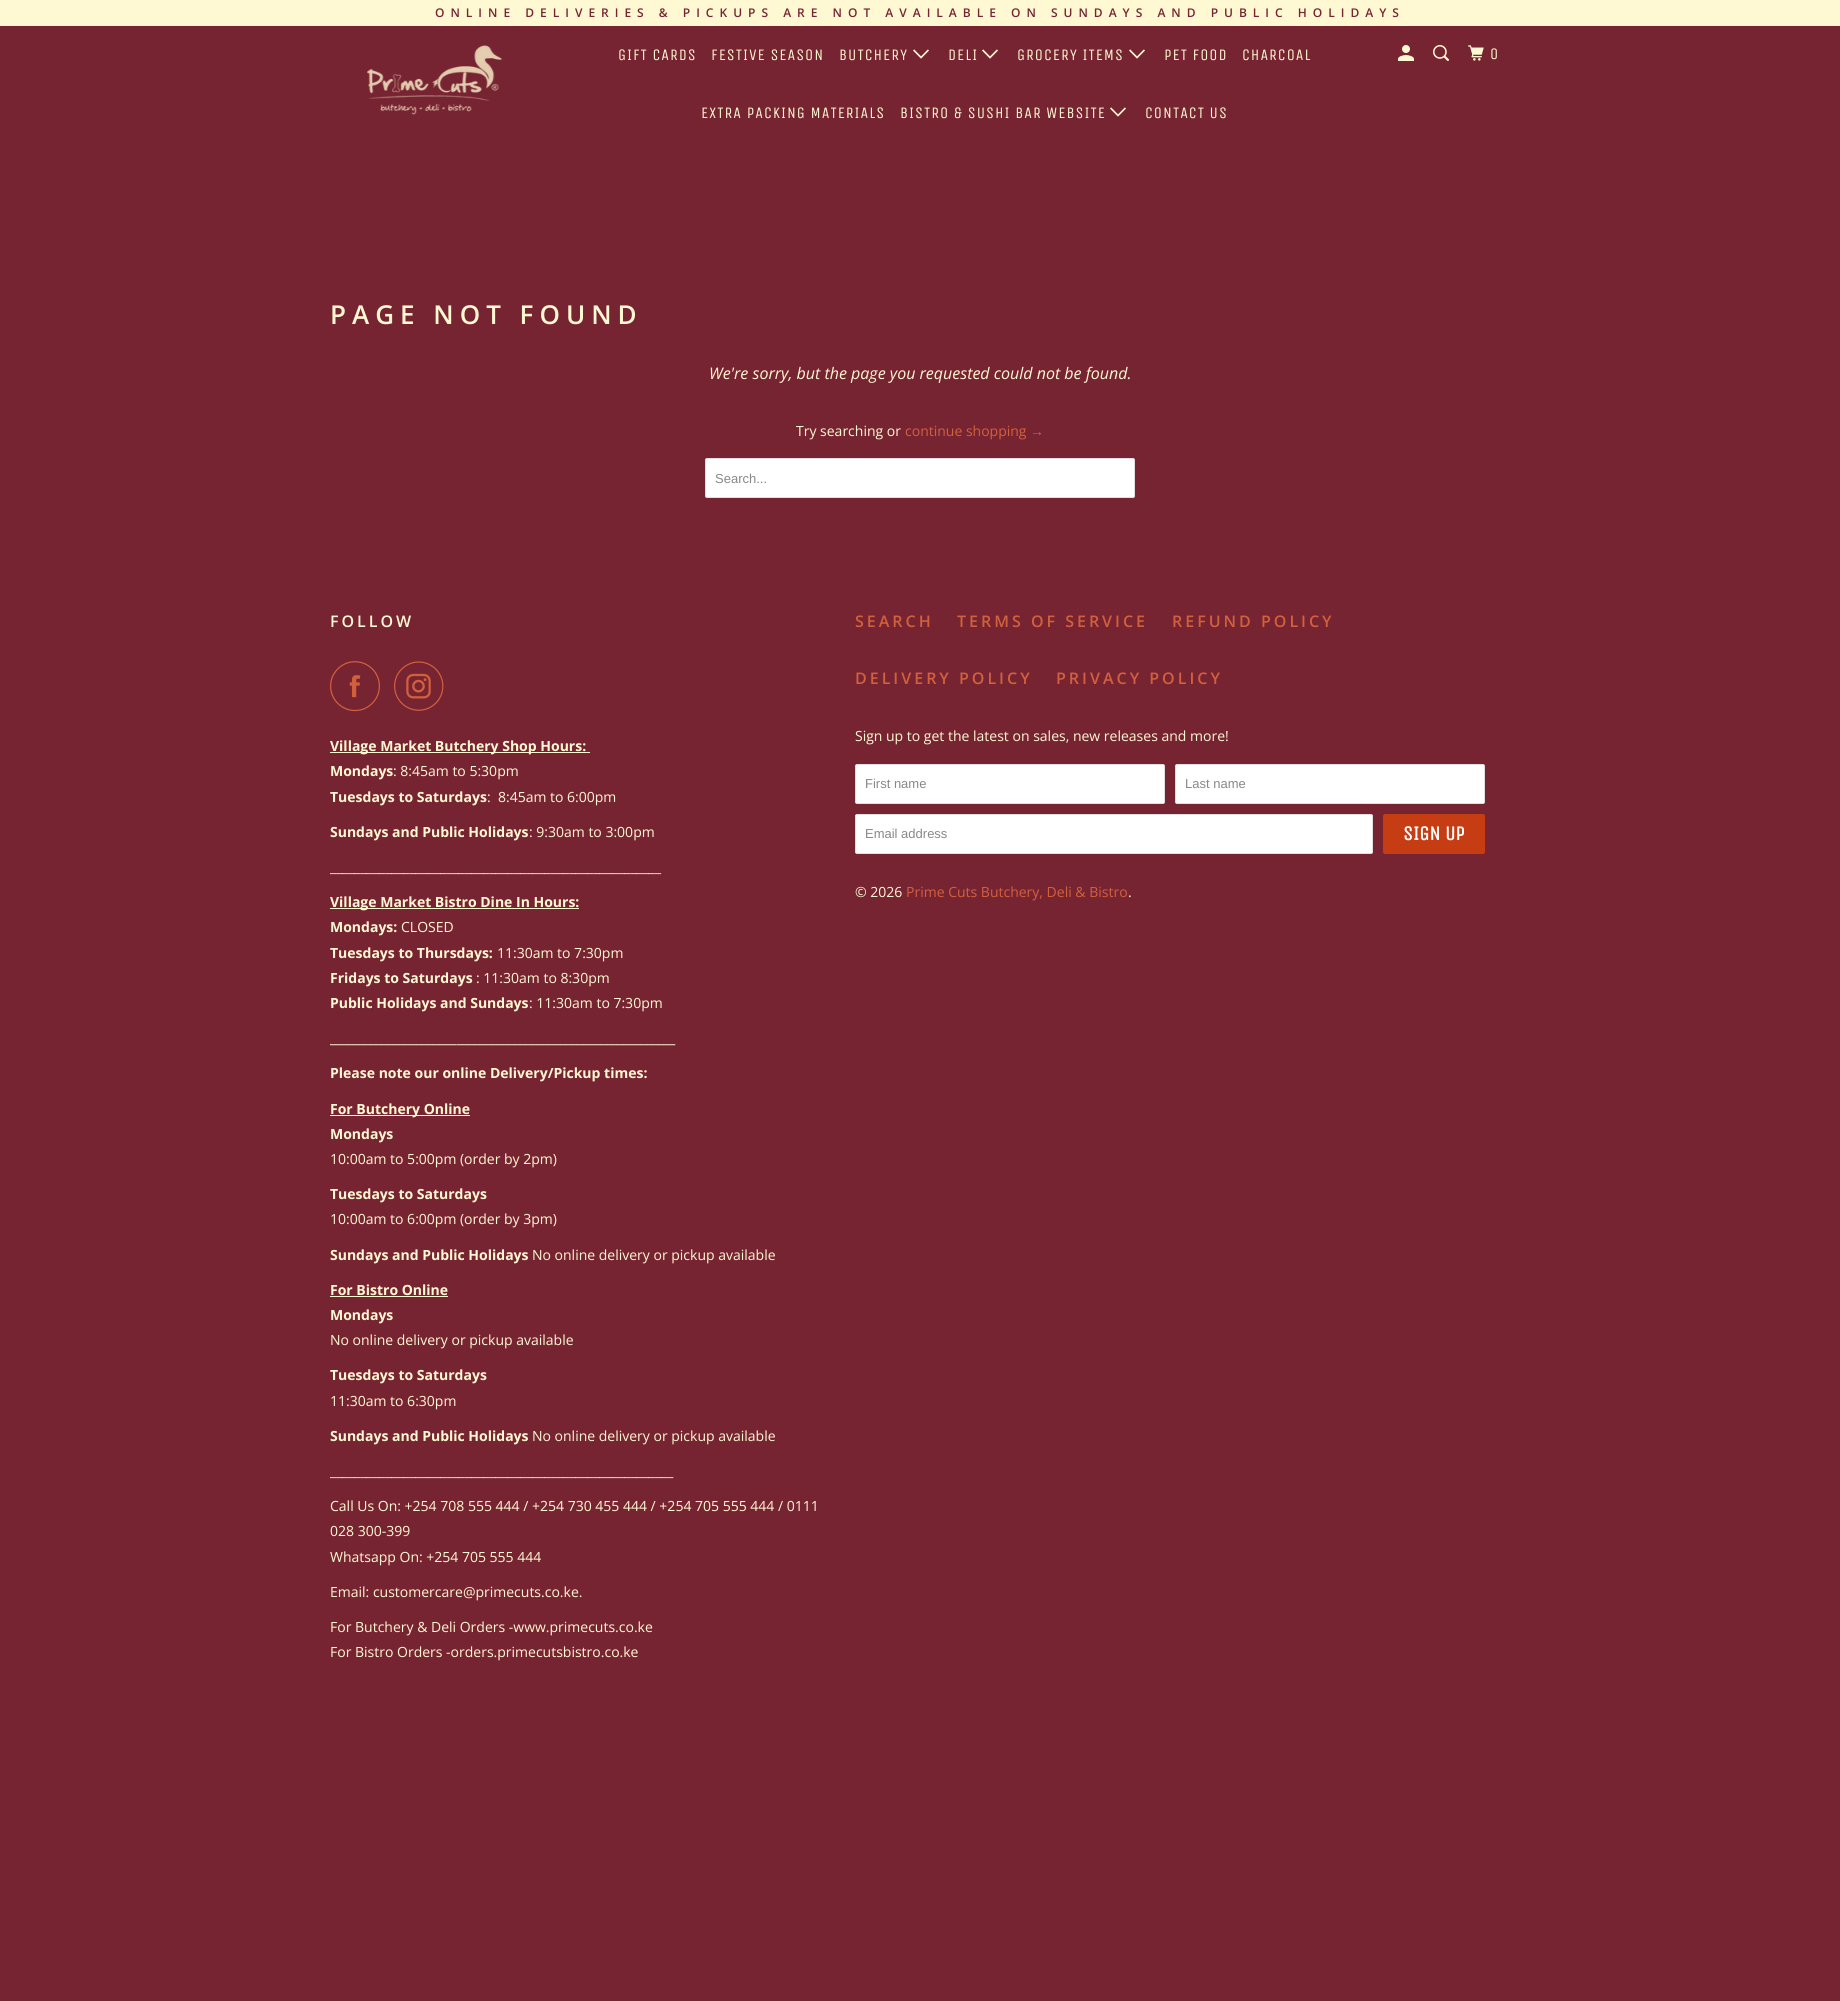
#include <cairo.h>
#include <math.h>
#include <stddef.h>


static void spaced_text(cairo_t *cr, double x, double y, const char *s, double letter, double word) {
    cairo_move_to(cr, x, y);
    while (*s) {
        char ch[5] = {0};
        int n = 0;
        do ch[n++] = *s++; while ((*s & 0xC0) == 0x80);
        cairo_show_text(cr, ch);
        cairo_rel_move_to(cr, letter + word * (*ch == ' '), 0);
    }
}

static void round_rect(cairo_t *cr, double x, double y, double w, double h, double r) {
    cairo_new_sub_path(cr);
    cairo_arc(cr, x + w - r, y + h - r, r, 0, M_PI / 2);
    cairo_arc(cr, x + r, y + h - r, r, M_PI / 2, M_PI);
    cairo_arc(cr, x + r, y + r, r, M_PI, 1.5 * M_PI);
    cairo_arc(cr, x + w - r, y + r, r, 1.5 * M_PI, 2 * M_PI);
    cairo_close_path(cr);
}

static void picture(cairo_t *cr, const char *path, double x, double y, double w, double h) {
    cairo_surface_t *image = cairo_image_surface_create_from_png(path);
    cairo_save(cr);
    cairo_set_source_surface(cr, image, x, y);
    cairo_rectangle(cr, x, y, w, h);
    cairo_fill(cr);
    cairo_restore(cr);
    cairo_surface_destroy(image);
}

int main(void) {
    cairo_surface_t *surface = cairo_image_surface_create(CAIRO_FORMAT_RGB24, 1840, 2001);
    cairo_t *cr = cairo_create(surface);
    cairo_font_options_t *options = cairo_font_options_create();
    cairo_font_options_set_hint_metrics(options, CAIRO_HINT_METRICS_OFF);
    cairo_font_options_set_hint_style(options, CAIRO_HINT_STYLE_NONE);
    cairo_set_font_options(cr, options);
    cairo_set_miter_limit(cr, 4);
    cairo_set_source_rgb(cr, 0.467, 0.141, 0.196);
    cairo_paint(cr);
    cairo_set_source_rgb(cr, 1, 0.973, 0.827);
    cairo_rectangle(cr, 0, 0, 1840, 26);
    cairo_fill(cr);
    cairo_select_font_face(cr, "Open Sans SemiBold", CAIRO_FONT_SLANT_NORMAL, CAIRO_FONT_WEIGHT_NORMAL);
    cairo_set_font_size(cr, 12);
    cairo_set_source_rgb(cr, 0.467, 0.141, 0.196);
    spaced_text(cr, 435, 17, "ONLINE DELIVERIES & PICKUPS ARE NOT AVAILABLE ON SUNDAYS AND PUBLIC HOLIDAYS", 6, 0);
    picture(cr, "img1.png", 366, 45, 137, 70);
    cairo_select_font_face(cr, "Unica One", CAIRO_FONT_SLANT_NORMAL, CAIRO_FONT_WEIGHT_NORMAL);
    cairo_set_font_size(cr, 16);
    cairo_set_source_rgb(cr, 1, 0.973, 0.827);
    spaced_text(cr, 618, 60, "GIFT CARDS", 1, 0);
    spaced_text(cr, 711, 60, "FESTIVE SEASON", 1, 0);
    spaced_text(cr, 839, 60, "BUTCHERY", 1, 0);
    picture(cr, "img2.png", 913, 49, 16, 10);
    spaced_text(cr, 948, 60, "DELI", 1, 0);
    picture(cr, "img2.png", 982, 49, 16, 10);
    spaced_text(cr, 1017, 60, "GROCERY ITEMS", 1, 0);
    picture(cr, "img2.png", 1129, 49, 16, 10);
    spaced_text(cr, 1164, 60, "PET FOOD", 1, 0);
    spaced_text(cr, 1242, 60, "CHARCOAL", 1, 0);
    spaced_text(cr, 701, 118, "EXTRA PACKING MATERIALS", 1, 0);
    spaced_text(cr, 900, 118, "BISTRO & SUSHI BAR WEBSITE", 1, 0);
    picture(cr, "img2.png", 1110, 107, 16, 10);
    spaced_text(cr, 1145, 118, "CONTACT US", 1, 0);
    picture(cr, "img3.png", 1398, 45, 16, 16);
    picture(cr, "img4.png", 1433, 45, 16, 16);
    picture(cr, "img5.png", 1468, 45, 16, 16);
    spaced_text(cr, 1490, 59, "0", 1, 0);
    cairo_select_font_face(cr, "Open Sans SemiBold", CAIRO_FONT_SLANT_NORMAL, CAIRO_FONT_WEIGHT_NORMAL);
    cairo_set_font_size(cr, 26);
    spaced_text(cr, 330, 324, "PAGE NOT FOUND", 6, 0);
    cairo_select_font_face(cr, "Open Sans", CAIRO_FONT_SLANT_ITALIC, CAIRO_FONT_WEIGHT_NORMAL);
    cairo_set_font_size(cr, 16);
    cairo_move_to(cr, 709, 379);
    cairo_show_text(cr, "We're sorry, but the page you requested could not be found.");
    cairo_select_font_face(cr, "Open Sans", CAIRO_FONT_SLANT_NORMAL, CAIRO_FONT_WEIGHT_NORMAL);
    cairo_set_font_size(cr, 14);
    cairo_move_to(cr, 796, 436);
    cairo_show_text(cr, "Try searching or");
    cairo_set_source_rgb(cr, 0.82, 0.376, 0.239);
    cairo_move_to(cr, 905, 436);
    cairo_show_text(cr, "continue shopping");
    cairo_select_font_face(cr, "Liberation Sans", CAIRO_FONT_SLANT_NORMAL, CAIRO_FONT_WEIGHT_NORMAL);
    cairo_move_to(cr, 1030, 436);
    cairo_show_text(cr, "→");
    cairo_set_source_rgb(cr, 1, 1, 1);
    round_rect(cr, 705.5, 458.5, 429, 39, 1.5);
    cairo_fill_preserve(cr);
    cairo_set_source_rgb(cr, 0.875, 0.875, 0.875);
    cairo_set_line_width(cr, 1);
    cairo_stroke(cr);
    cairo_set_font_size(cr, 13);
    cairo_set_source_rgb(cr, 0.533, 0.533, 0.533);
    cairo_move_to(cr, 715, 483);
    cairo_show_text(cr, "Search...");
    cairo_select_font_face(cr, "Open Sans SemiBold", CAIRO_FONT_SLANT_NORMAL, CAIRO_FONT_WEIGHT_NORMAL);
    cairo_set_font_size(cr, 16);
    cairo_set_source_rgb(cr, 1, 0.973, 0.827);
    spaced_text(cr, 330, 627, "FOLLOW", 3, 0);
    picture(cr, "img6.png", 330, 661, 50, 51);
    picture(cr, "img7.png", 394, 661, 50, 50);
    cairo_rectangle(cr, 330, 752, 260, 1);
    cairo_fill(cr);
    cairo_select_font_face(cr, "Open Sans", CAIRO_FONT_SLANT_NORMAL, CAIRO_FONT_WEIGHT_BOLD);
    cairo_set_font_size(cr, 14);
    cairo_move_to(cr, 330, 751);
    cairo_show_text(cr, "Village Market Butchery Shop Hours:");
    cairo_move_to(cr, 330, 776);
    cairo_show_text(cr, "Mondays");
    cairo_select_font_face(cr, "Open Sans", CAIRO_FONT_SLANT_NORMAL, CAIRO_FONT_WEIGHT_NORMAL);
    cairo_move_to(cr, 393, 776);
    cairo_show_text(cr, ": 8:45am to 5:30pm");
    cairo_select_font_face(cr, "Open Sans", CAIRO_FONT_SLANT_NORMAL, CAIRO_FONT_WEIGHT_BOLD);
    cairo_move_to(cr, 330, 802);
    cairo_show_text(cr, "Tuesdays to Saturdays");
    cairo_select_font_face(cr, "Open Sans", CAIRO_FONT_SLANT_NORMAL, CAIRO_FONT_WEIGHT_NORMAL);
    cairo_move_to(cr, 487, 802);
    cairo_show_text(cr, ":  8:45am to 6:00pm");
    cairo_select_font_face(cr, "Open Sans", CAIRO_FONT_SLANT_NORMAL, CAIRO_FONT_WEIGHT_BOLD);
    cairo_move_to(cr, 330, 837);
    cairo_show_text(cr, "Sundays and Public Holidays");
    cairo_select_font_face(cr, "Open Sans", CAIRO_FONT_SLANT_NORMAL, CAIRO_FONT_WEIGHT_NORMAL);
    cairo_move_to(cr, 529, 837);
    cairo_show_text(cr, ": 9:30am to 3:00pm");
    cairo_move_to(cr, 330, 872);
    cairo_show_text(cr, "______________________________________________________");
    cairo_rectangle(cr, 330, 908, 249, 1);
    cairo_fill(cr);
    cairo_select_font_face(cr, "Open Sans", CAIRO_FONT_SLANT_NORMAL, CAIRO_FONT_WEIGHT_BOLD);
    cairo_move_to(cr, 330, 907);
    cairo_show_text(cr, "Village Market Bistro Dine In Hours:");
    cairo_move_to(cr, 330, 932);
    cairo_show_text(cr, "Mondays:");
    cairo_select_font_face(cr, "Open Sans", CAIRO_FONT_SLANT_NORMAL, CAIRO_FONT_WEIGHT_NORMAL);
    cairo_move_to(cr, 401, 932);
    cairo_show_text(cr, "CLOSED");
    cairo_select_font_face(cr, "Open Sans", CAIRO_FONT_SLANT_NORMAL, CAIRO_FONT_WEIGHT_BOLD);
    cairo_move_to(cr, 330, 958);
    cairo_show_text(cr, "Tuesdays to Thursdays:");
    cairo_select_font_face(cr, "Open Sans", CAIRO_FONT_SLANT_NORMAL, CAIRO_FONT_WEIGHT_NORMAL);
    cairo_move_to(cr, 497, 958);
    cairo_show_text(cr, "11:30am to 7:30pm");
    cairo_select_font_face(cr, "Open Sans", CAIRO_FONT_SLANT_NORMAL, CAIRO_FONT_WEIGHT_BOLD);
    cairo_move_to(cr, 330, 983);
    cairo_show_text(cr, "Fridays to Saturdays");
    cairo_select_font_face(cr, "Open Sans", CAIRO_FONT_SLANT_NORMAL, CAIRO_FONT_WEIGHT_NORMAL);
    cairo_move_to(cr, 476, 983);
    cairo_show_text(cr, ": 11:30am to 8:30pm");
    cairo_select_font_face(cr, "Open Sans", CAIRO_FONT_SLANT_NORMAL, CAIRO_FONT_WEIGHT_BOLD);
    cairo_move_to(cr, 330, 1008);
    cairo_show_text(cr, "Public Holidays and Sundays");
    cairo_select_font_face(cr, "Open Sans", CAIRO_FONT_SLANT_NORMAL, CAIRO_FONT_WEIGHT_NORMAL);
    cairo_move_to(cr, 529, 1008);
    cairo_show_text(cr, ": 11:30am to 7:30pm");
    cairo_select_font_face(cr, "Open Sans", CAIRO_FONT_SLANT_NORMAL, CAIRO_FONT_WEIGHT_BOLD);
    cairo_move_to(cr, 330, 1043);
    cairo_show_text(cr, "____________________________________________________________");
    cairo_move_to(cr, 330, 1078);
    cairo_show_text(cr, "Please note our online Delivery/Pickup times:");
    cairo_rectangle(cr, 330, 1115, 140, 1);
    cairo_fill(cr);
    cairo_move_to(cr, 330, 1114);
    cairo_show_text(cr, "For Butchery Online");
    cairo_move_to(cr, 330, 1139);
    cairo_show_text(cr, "Mondays");
    cairo_select_font_face(cr, "Open Sans", CAIRO_FONT_SLANT_NORMAL, CAIRO_FONT_WEIGHT_NORMAL);
    cairo_move_to(cr, 330, 1164);
    cairo_show_text(cr, "10:00am to 5:00pm (order by 2pm)");
    cairo_select_font_face(cr, "Open Sans", CAIRO_FONT_SLANT_NORMAL, CAIRO_FONT_WEIGHT_BOLD);
    cairo_move_to(cr, 330, 1199);
    cairo_show_text(cr, "Tuesdays to Saturdays");
    cairo_select_font_face(cr, "Open Sans", CAIRO_FONT_SLANT_NORMAL, CAIRO_FONT_WEIGHT_NORMAL);
    cairo_move_to(cr, 330, 1224);
    cairo_show_text(cr, "10:00am to 6:00pm (order by 3pm)");
    cairo_select_font_face(cr, "Open Sans", CAIRO_FONT_SLANT_NORMAL, CAIRO_FONT_WEIGHT_BOLD);
    cairo_move_to(cr, 330, 1260);
    cairo_show_text(cr, "Sundays and Public Holidays");
    cairo_select_font_face(cr, "Open Sans", CAIRO_FONT_SLANT_NORMAL, CAIRO_FONT_WEIGHT_NORMAL);
    cairo_move_to(cr, 532, 1260);
    cairo_show_text(cr, "No online delivery or pickup available");
    cairo_select_font_face(cr, "Open Sans", CAIRO_FONT_SLANT_NORMAL, CAIRO_FONT_WEIGHT_BOLD);
    cairo_move_to(cr, 330, 1295);
    cairo_show_text(cr, "For Bistro Online");
    cairo_rectangle(cr, 330, 1296, 118, 1);
    cairo_fill(cr);
    cairo_move_to(cr, 330, 1320);
    cairo_show_text(cr, "Mondays");
    cairo_select_font_face(cr, "Open Sans", CAIRO_FONT_SLANT_NORMAL, CAIRO_FONT_WEIGHT_NORMAL);
    cairo_move_to(cr, 330, 1345);
    cairo_show_text(cr, "No online delivery or pickup available");
    cairo_select_font_face(cr, "Open Sans", CAIRO_FONT_SLANT_NORMAL, CAIRO_FONT_WEIGHT_BOLD);
    cairo_move_to(cr, 330, 1380);
    cairo_show_text(cr, "Tuesdays to Saturdays");
    cairo_select_font_face(cr, "Open Sans", CAIRO_FONT_SLANT_NORMAL, CAIRO_FONT_WEIGHT_NORMAL);
    cairo_move_to(cr, 330, 1406);
    cairo_show_text(cr, "11:30am to 6:30pm");
    cairo_select_font_face(cr, "Open Sans", CAIRO_FONT_SLANT_NORMAL, CAIRO_FONT_WEIGHT_BOLD);
    cairo_move_to(cr, 330, 1441);
    cairo_show_text(cr, "Sundays and Public Holidays");
    cairo_select_font_face(cr, "Open Sans", CAIRO_FONT_SLANT_NORMAL, CAIRO_FONT_WEIGHT_NORMAL);
    cairo_move_to(cr, 532, 1441);
    cairo_show_text(cr, "No online delivery or pickup available");
    cairo_move_to(cr, 330, 1476);
    cairo_show_text(cr, "________________________________________________________");
    cairo_move_to(cr, 330, 1511);
    cairo_show_text(cr, "Call Us On: +254 708 555 444 / +254 730 455 444 / +254 705 555 444 / 0111");
    cairo_move_to(cr, 330, 1536);
    cairo_show_text(cr, "028 300-399");
    cairo_move_to(cr, 330, 1562);
    cairo_show_text(cr, "Whatsapp On: +254 705 555 444");
    cairo_move_to(cr, 330, 1597);
    cairo_show_text(cr, "Email: customercare@primecuts.co.ke.");
    cairo_move_to(cr, 330, 1632);
    cairo_show_text(cr, "For Butchery & Deli Orders -www.primecuts.co.ke");
    cairo_move_to(cr, 330, 1657);
    cairo_show_text(cr, "For Bistro Orders -orders.primecutsbistro.co.ke");
    cairo_select_font_face(cr, "Open Sans SemiBold", CAIRO_FONT_SLANT_NORMAL, CAIRO_FONT_WEIGHT_NORMAL);
    cairo_set_font_size(cr, 16);
    cairo_set_source_rgb(cr, 0.82, 0.376, 0.239);
    spaced_text(cr, 855, 627, "SEARCH", 3, 0);
    spaced_text(cr, 957, 627, "TERMS OF SERVICE", 3, 0);
    spaced_text(cr, 1172, 627, "REFUND POLICY", 3, 0);
    spaced_text(cr, 855, 684, "DELIVERY POLICY", 3, 0);
    spaced_text(cr, 1056, 684, "PRIVACY POLICY", 3, 0);
    cairo_select_font_face(cr, "Open Sans", CAIRO_FONT_SLANT_NORMAL, CAIRO_FONT_WEIGHT_NORMAL);
    cairo_set_font_size(cr, 14);
    cairo_set_source_rgb(cr, 1, 0.973, 0.827);
    cairo_move_to(cr, 855, 741);
    cairo_show_text(cr, "Sign up to get the latest on sales, new releases and more!");
    cairo_set_source_rgb(cr, 1, 1, 1);
    round_rect(cr, 855.5, 764.5, 309, 39, 1.5);
    cairo_fill_preserve(cr);
    cairo_set_source_rgb(cr, 0.875, 0.875, 0.875);
    cairo_stroke(cr);
    cairo_select_font_face(cr, "Liberation Sans", CAIRO_FONT_SLANT_NORMAL, CAIRO_FONT_WEIGHT_NORMAL);
    cairo_set_font_size(cr, 13);
    cairo_set_source_rgb(cr, 0.533, 0.533, 0.533);
    cairo_move_to(cr, 865, 788);
    cairo_show_text(cr, "First name");
    cairo_set_source_rgb(cr, 1, 1, 1);
    round_rect(cr, 1175.5, 764.5, 309, 39, 1.5);
    cairo_fill_preserve(cr);
    cairo_set_source_rgb(cr, 0.875, 0.875, 0.875);
    cairo_stroke(cr);
    cairo_set_source_rgb(cr, 0.533, 0.533, 0.533);
    cairo_move_to(cr, 1185, 788);
    cairo_show_text(cr, "Last name");
    cairo_set_source_rgb(cr, 1, 1, 1);
    round_rect(cr, 855.5, 814.5, 517, 39, 1.5);
    cairo_fill_preserve(cr);
    cairo_set_source_rgb(cr, 0.875, 0.875, 0.875);
    cairo_stroke(cr);
    cairo_set_source_rgb(cr, 0.533, 0.533, 0.533);
    cairo_move_to(cr, 865, 838);
    cairo_show_text(cr, "Email address");
    cairo_set_source_rgb(cr, 0.776, 0.239, 0.075);
    round_rect(cr, 1383, 814, 102, 40, 2);
    cairo_fill(cr);
    cairo_select_font_face(cr, "Unica One", CAIRO_FONT_SLANT_NORMAL, CAIRO_FONT_WEIGHT_BOLD);
    cairo_set_font_size(cr, 20);
    cairo_set_source_rgb(cr, 1, 1, 1);
    cairo_move_to(cr, 1403, 840);
    cairo_show_text(cr, "SIGN UP");
    cairo_select_font_face(cr, "Open Sans", CAIRO_FONT_SLANT_NORMAL, CAIRO_FONT_WEIGHT_NORMAL);
    cairo_set_font_size(cr, 14);
    cairo_set_source_rgb(cr, 1, 0.973, 0.827);
    cairo_move_to(cr, 855, 897);
    cairo_show_text(cr, "© 2026");
    cairo_set_source_rgb(cr, 0.82, 0.376, 0.239);
    cairo_move_to(cr, 906, 897);
    cairo_show_text(cr, "Prime Cuts Butchery, Deli & Bistro");
    cairo_set_source_rgb(cr, 1, 0.973, 0.827);
    cairo_move_to(cr, 1128, 897);
    cairo_show_text(cr, ".");
    cairo_surface_write_to_png(surface, "page.png");
    cairo_font_options_destroy(options);
    cairo_destroy(cr);
    cairo_surface_destroy(surface);
    return 0;
}
